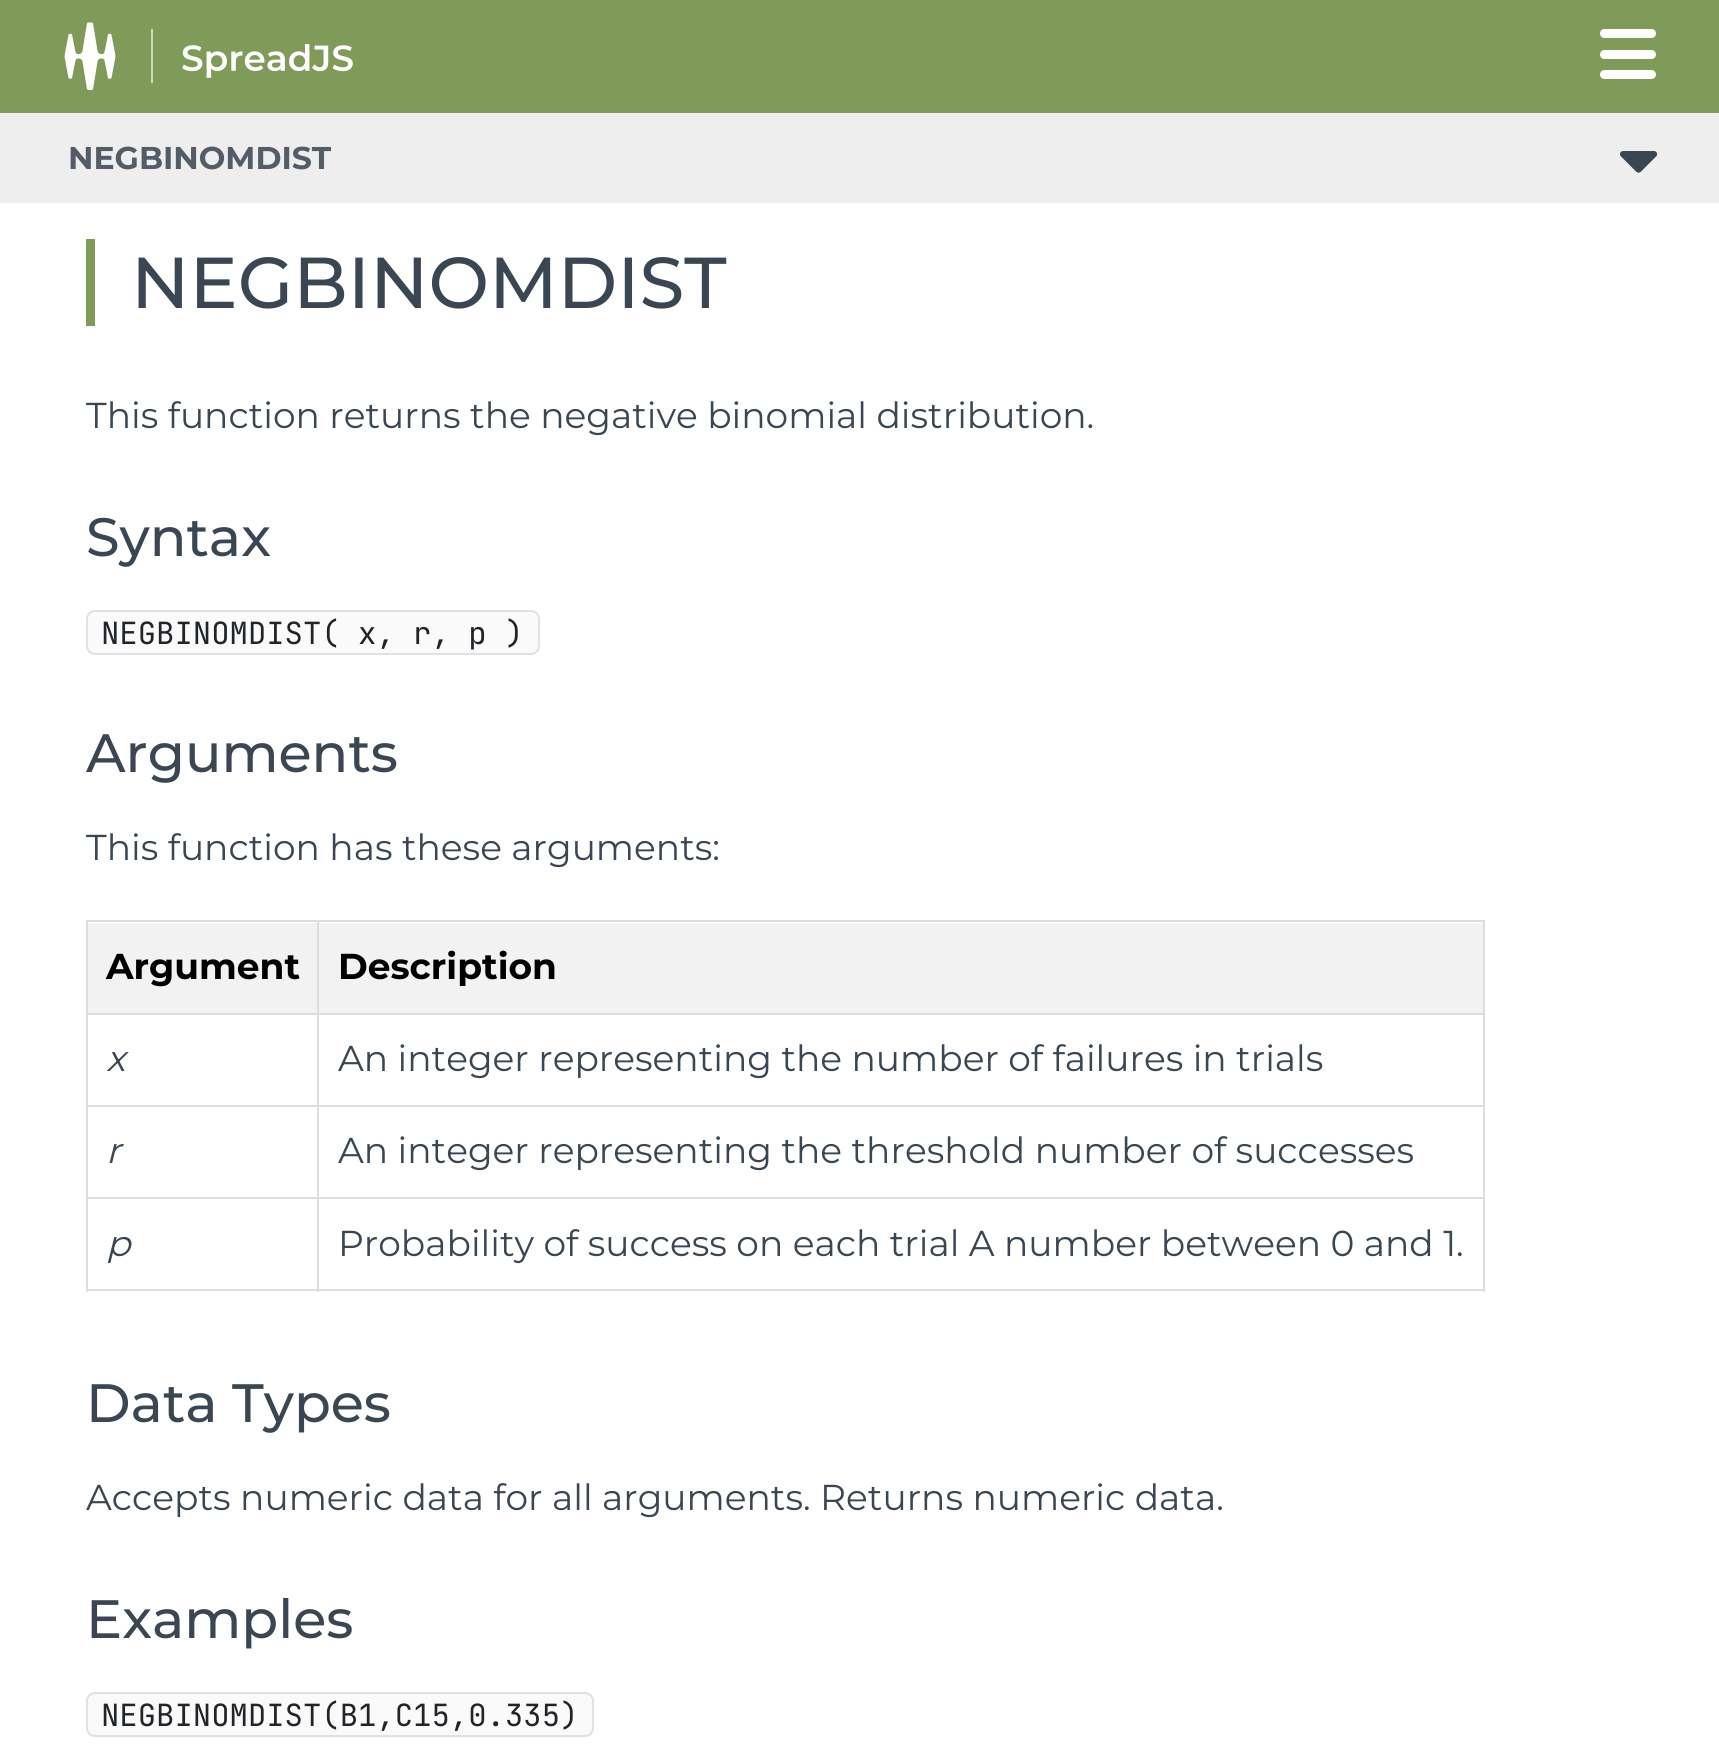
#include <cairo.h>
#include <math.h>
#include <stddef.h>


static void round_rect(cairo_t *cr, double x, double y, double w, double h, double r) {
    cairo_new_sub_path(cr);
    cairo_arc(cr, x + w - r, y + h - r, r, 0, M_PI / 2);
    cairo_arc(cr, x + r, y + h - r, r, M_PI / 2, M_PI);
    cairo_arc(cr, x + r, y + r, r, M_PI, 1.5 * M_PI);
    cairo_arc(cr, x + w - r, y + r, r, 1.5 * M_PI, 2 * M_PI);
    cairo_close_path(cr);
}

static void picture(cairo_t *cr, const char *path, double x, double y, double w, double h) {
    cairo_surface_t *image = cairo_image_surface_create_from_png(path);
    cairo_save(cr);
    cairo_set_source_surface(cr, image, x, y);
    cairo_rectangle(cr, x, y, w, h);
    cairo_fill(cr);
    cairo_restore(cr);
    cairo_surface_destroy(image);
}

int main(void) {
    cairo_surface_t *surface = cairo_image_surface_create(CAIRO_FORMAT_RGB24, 1719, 1758);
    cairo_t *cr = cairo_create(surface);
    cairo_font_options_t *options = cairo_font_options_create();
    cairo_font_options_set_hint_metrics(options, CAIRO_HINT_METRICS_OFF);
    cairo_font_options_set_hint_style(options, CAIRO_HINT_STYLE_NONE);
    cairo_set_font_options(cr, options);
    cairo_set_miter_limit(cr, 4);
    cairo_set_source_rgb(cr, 1, 1, 1);
    cairo_paint(cr);
    cairo_set_source_rgb(cr, 0.502, 0.608, 0.349);
    cairo_rectangle(cr, 0, 0, 1719, 113);
    cairo_fill(cr);
    picture(cr, "img1.png", 64, 22, 52, 69);
    cairo_set_source_rgb(cr, 0.8, 0.843, 0.741);
    cairo_rectangle(cr, 151, 29, 2, 54);
    cairo_fill(cr);
    picture(cr, "img2.png", 182, 44, 171, 34);
    cairo_set_source_rgb(cr, 1, 1, 1);
    round_rect(cr, 1600, 29, 56, 9, 4.5);
    cairo_fill(cr);
    round_rect(cr, 1600, 50, 56, 9, 4.5);
    cairo_fill(cr);
    round_rect(cr, 1600, 70, 56, 9, 4.5);
    cairo_fill(cr);
    cairo_set_source_rgb(cr, 0.933, 0.933, 0.933);
    cairo_rectangle(cr, 0, 113, 1719, 90);
    cairo_fill(cr);
    cairo_select_font_face(cr, "Montserrat", CAIRO_FONT_SLANT_NORMAL, CAIRO_FONT_WEIGHT_BOLD);
    cairo_set_font_size(cr, 31.5);
    cairo_set_source_rgb(cr, 0.325, 0.361, 0.404);
    cairo_move_to(cr, 68, 169);
    cairo_show_text(cr, "NEGBINOMDIST");
    picture(cr, "img3.png", 1620, 151, 38, 22);
    cairo_set_source_rgb(cr, 0.502, 0.608, 0.349);
    cairo_rectangle(cr, 86, 239, 9, 87);
    cairo_fill(cr);
    cairo_select_font_face(cr, "Montserrat Medium", CAIRO_FONT_SLANT_NORMAL, CAIRO_FONT_WEIGHT_NORMAL);
    cairo_set_font_size(cr, 72);
    cairo_set_source_rgb(cr, 0.227, 0.275, 0.322);
    cairo_move_to(cr, 131, 308);
    cairo_show_text(cr, "NEGBINOMDIST");
    cairo_select_font_face(cr, "Montserrat", CAIRO_FONT_SLANT_NORMAL, CAIRO_FONT_WEIGHT_NORMAL);
    cairo_set_font_size(cr, 36);
    cairo_move_to(cr, 86, 428);
    cairo_show_text(cr, "This function returns the negative binomial distribution.");
    cairo_select_font_face(cr, "Montserrat Medium", CAIRO_FONT_SLANT_NORMAL, CAIRO_FONT_WEIGHT_NORMAL);
    cairo_set_font_size(cr, 54);
    cairo_move_to(cr, 86, 556);
    cairo_show_text(cr, "Syntax");
    cairo_set_source_rgb(cr, 0.98, 0.98, 0.98);
    round_rect(cr, 87, 611, 452, 43, 8);
    cairo_fill_preserve(cr);
    cairo_set_source_rgb(cr, 0.871, 0.886, 0.902);
    cairo_stroke(cr);
    cairo_select_font_face(cr, "JetBrains Mono", CAIRO_FONT_SLANT_NORMAL, CAIRO_FONT_WEIGHT_NORMAL);
    cairo_set_font_size(cr, 30.6);
    cairo_set_source_rgb(cr, 0.129, 0.145, 0.161);
    cairo_move_to(cr, 101, 644);
    cairo_show_text(cr, "NEGBINOMDIST( x, r, p )");
    cairo_select_font_face(cr, "Montserrat Medium", CAIRO_FONT_SLANT_NORMAL, CAIRO_FONT_WEIGHT_NORMAL);
    cairo_set_font_size(cr, 54);
    cairo_set_source_rgb(cr, 0.227, 0.275, 0.322);
    cairo_move_to(cr, 86, 772);
    cairo_show_text(cr, "Arguments");
    cairo_select_font_face(cr, "Montserrat", CAIRO_FONT_SLANT_NORMAL, CAIRO_FONT_WEIGHT_NORMAL);
    cairo_set_font_size(cr, 36);
    cairo_move_to(cr, 86, 860);
    cairo_show_text(cr, "This function has these arguments:");
    cairo_set_source_rgb(cr, 0.949, 0.949, 0.949);
    cairo_rectangle(cr, 88, 923, 1395, 90);
    cairo_fill(cr);
    cairo_set_source_rgb(cr, 0.867, 0.867, 0.867);
    cairo_rectangle(cr, 317, 920, 1168, 2);
    cairo_fill(cr);
    cairo_rectangle(cr, 317, 1013, 1168, 2);
    cairo_fill(cr);
    cairo_rectangle(cr, 317, 1105, 1168, 2);
    cairo_fill(cr);
    cairo_rectangle(cr, 317, 1197, 1168, 2);
    cairo_fill(cr);
    cairo_rectangle(cr, 1483, 1197, 2, 95);
    cairo_fill(cr);
    cairo_rectangle(cr, 317, 1289, 1168, 2);
    cairo_fill(cr);
    cairo_rectangle(cr, 317, 1197, 2, 95);
    cairo_fill(cr);
    cairo_rectangle(cr, 86, 1197, 234, 2);
    cairo_fill(cr);
    cairo_rectangle(cr, 317, 1105, 2, 94);
    cairo_fill(cr);
    cairo_rectangle(cr, 86, 1105, 234, 2);
    cairo_fill(cr);
    cairo_rectangle(cr, 317, 1013, 2, 94);
    cairo_fill(cr);
    cairo_rectangle(cr, 86, 1013, 234, 2);
    cairo_fill(cr);
    cairo_rectangle(cr, 317, 920, 2, 95);
    cairo_fill(cr);
    cairo_rectangle(cr, 86, 920, 234, 2);
    cairo_fill(cr);
    cairo_rectangle(cr, 86, 1289, 234, 2);
    cairo_fill(cr);
    cairo_rectangle(cr, 86, 1197, 2, 95);
    cairo_fill(cr);
    cairo_rectangle(cr, 86, 1105, 2, 94);
    cairo_fill(cr);
    cairo_rectangle(cr, 86, 1013, 2, 94);
    cairo_fill(cr);
    cairo_rectangle(cr, 86, 920, 2, 95);
    cairo_fill(cr);
    cairo_select_font_face(cr, "Montserrat", CAIRO_FONT_SLANT_NORMAL, CAIRO_FONT_WEIGHT_BOLD);
    cairo_set_source_rgb(cr, 0, 0, 0);
    cairo_move_to(cr, 106, 979);
    cairo_show_text(cr, "Argument");
    cairo_set_source_rgb(cr, 0.867, 0.867, 0.867);
    cairo_rectangle(cr, 1483, 1105, 2, 94);
    cairo_fill(cr);
    cairo_rectangle(cr, 1483, 1013, 2, 94);
    cairo_fill(cr);
    cairo_rectangle(cr, 1483, 920, 2, 95);
    cairo_fill(cr);
    cairo_set_source_rgb(cr, 0, 0, 0);
    cairo_move_to(cr, 338, 979);
    cairo_show_text(cr, "Description");
    cairo_select_font_face(cr, "Montserrat", CAIRO_FONT_SLANT_ITALIC, CAIRO_FONT_WEIGHT_NORMAL);
    cairo_set_source_rgb(cr, 0.227, 0.275, 0.322);
    cairo_move_to(cr, 106, 1071);
    cairo_show_text(cr, "x");
    cairo_select_font_face(cr, "Montserrat", CAIRO_FONT_SLANT_NORMAL, CAIRO_FONT_WEIGHT_NORMAL);
    cairo_move_to(cr, 338, 1071);
    cairo_show_text(cr, "An integer representing the number of failures in trials");
    cairo_select_font_face(cr, "Montserrat", CAIRO_FONT_SLANT_ITALIC, CAIRO_FONT_WEIGHT_NORMAL);
    cairo_move_to(cr, 106, 1163);
    cairo_show_text(cr, "r");
    cairo_select_font_face(cr, "Montserrat", CAIRO_FONT_SLANT_NORMAL, CAIRO_FONT_WEIGHT_NORMAL);
    cairo_move_to(cr, 338, 1163);
    cairo_show_text(cr, "An integer representing the threshold number of successes");
    cairo_select_font_face(cr, "Montserrat", CAIRO_FONT_SLANT_ITALIC, CAIRO_FONT_WEIGHT_NORMAL);
    cairo_move_to(cr, 106, 1256);
    cairo_show_text(cr, "p");
    cairo_select_font_face(cr, "Montserrat", CAIRO_FONT_SLANT_NORMAL, CAIRO_FONT_WEIGHT_NORMAL);
    cairo_move_to(cr, 338, 1256);
    cairo_show_text(cr, "Probability of success on each trial A number between 0 and 1.");
    cairo_select_font_face(cr, "Montserrat Medium", CAIRO_FONT_SLANT_NORMAL, CAIRO_FONT_WEIGHT_NORMAL);
    cairo_set_font_size(cr, 54);
    cairo_move_to(cr, 86, 1422);
    cairo_show_text(cr, "Data Types");
    cairo_select_font_face(cr, "Montserrat", CAIRO_FONT_SLANT_NORMAL, CAIRO_FONT_WEIGHT_NORMAL);
    cairo_set_font_size(cr, 36);
    cairo_move_to(cr, 86, 1510);
    cairo_show_text(cr, "Accepts numeric data for all arguments. Returns numeric data.");
    cairo_select_font_face(cr, "Montserrat Medium", CAIRO_FONT_SLANT_NORMAL, CAIRO_FONT_WEIGHT_NORMAL);
    cairo_set_font_size(cr, 54);
    cairo_move_to(cr, 86, 1638);
    cairo_show_text(cr, "Examples");
    cairo_set_source_rgb(cr, 0.98, 0.98, 0.98);
    round_rect(cr, 87, 1693, 506, 43, 8);
    cairo_fill_preserve(cr);
    cairo_set_source_rgb(cr, 0.871, 0.886, 0.902);
    cairo_stroke(cr);
    cairo_select_font_face(cr, "JetBrains Mono", CAIRO_FONT_SLANT_NORMAL, CAIRO_FONT_WEIGHT_NORMAL);
    cairo_set_font_size(cr, 30.6);
    cairo_set_source_rgb(cr, 0.129, 0.145, 0.161);
    cairo_move_to(cr, 101, 1726);
    cairo_show_text(cr, "NEGBINOMDIST(B1,C15,0.335)");
    cairo_surface_write_to_png(surface, "page.png");
    cairo_font_options_destroy(options);
    cairo_destroy(cr);
    cairo_surface_destroy(surface);
    return 0;
}
